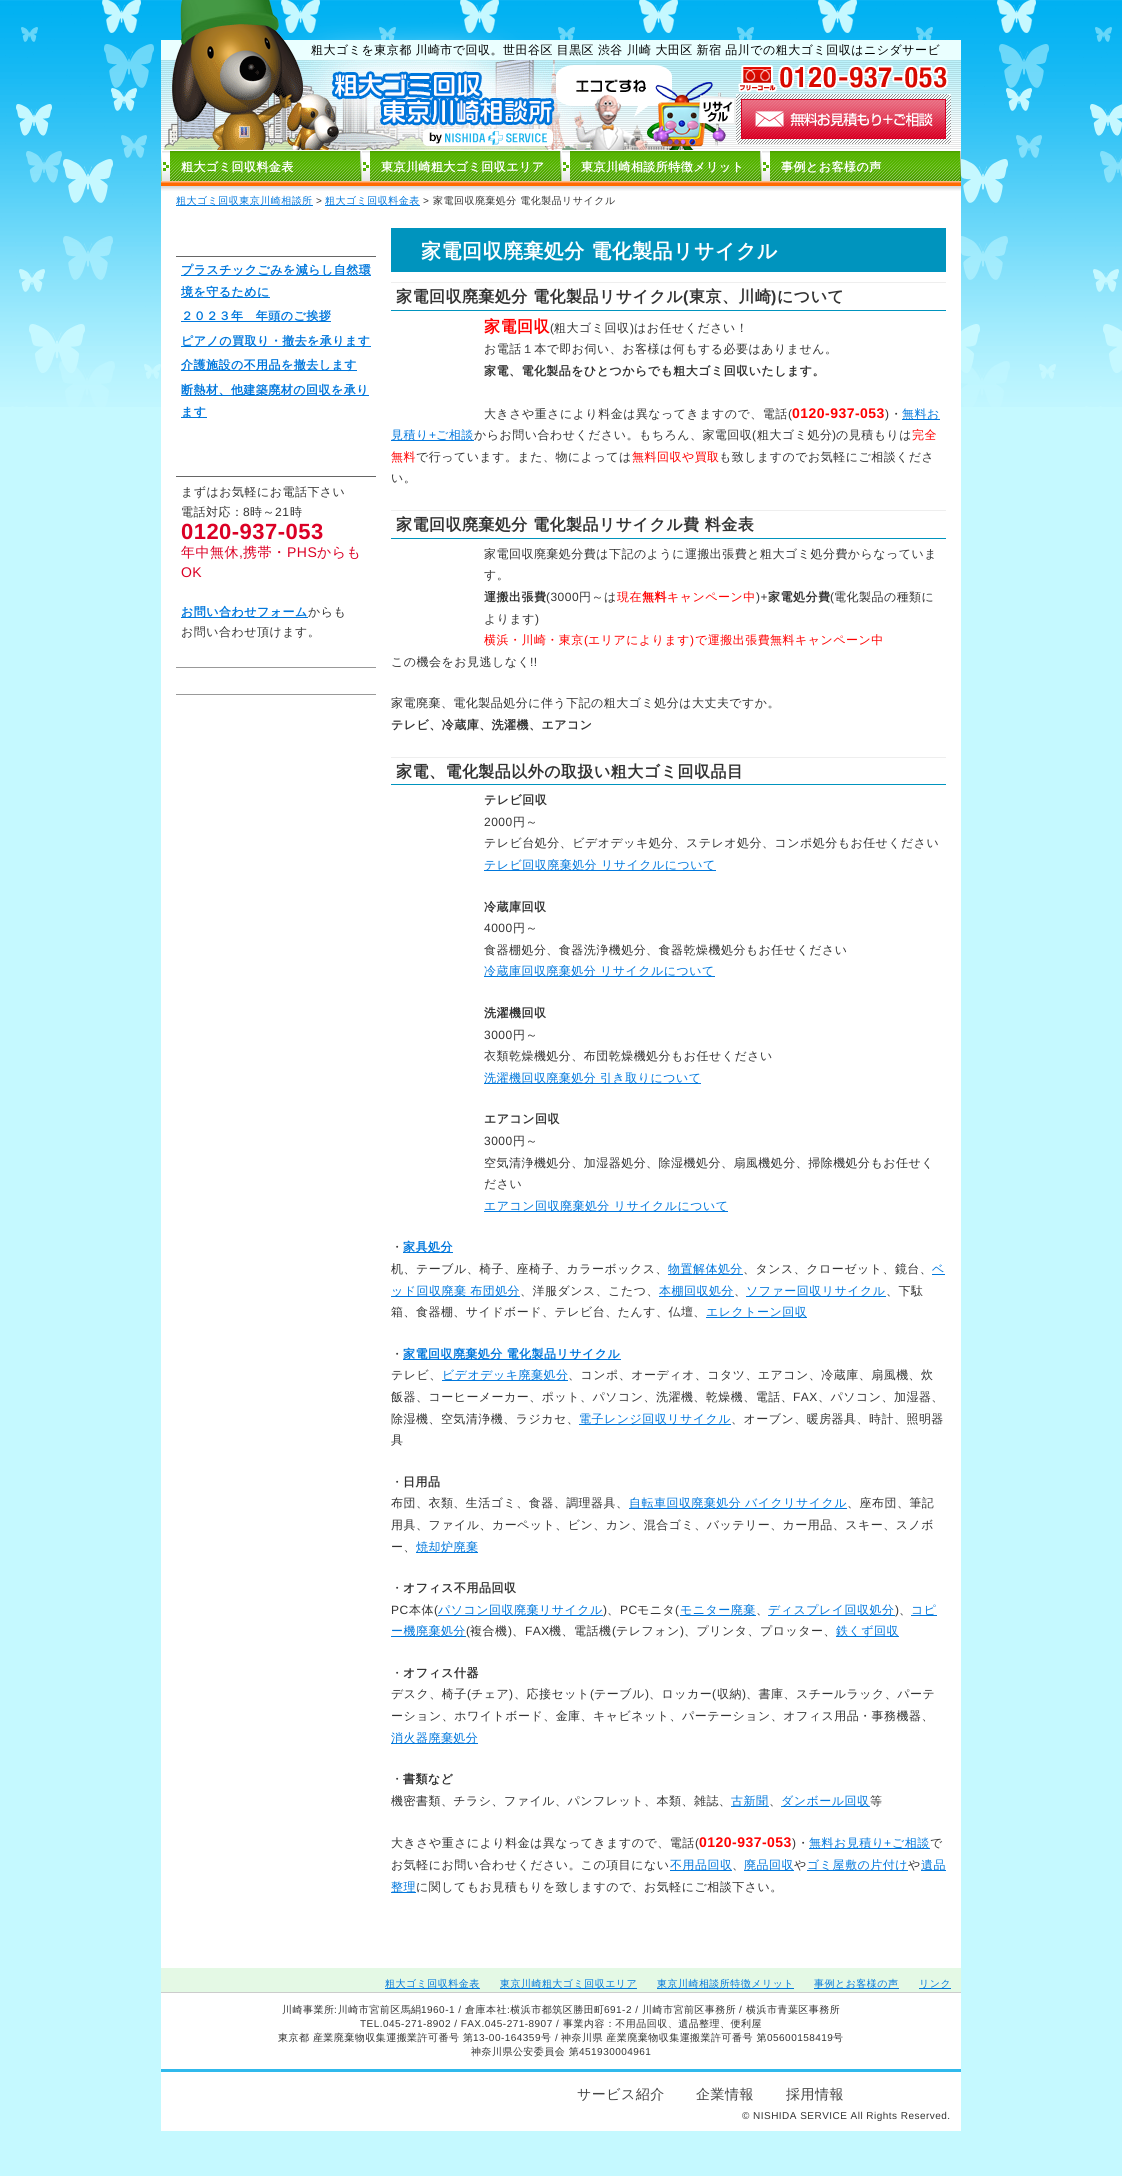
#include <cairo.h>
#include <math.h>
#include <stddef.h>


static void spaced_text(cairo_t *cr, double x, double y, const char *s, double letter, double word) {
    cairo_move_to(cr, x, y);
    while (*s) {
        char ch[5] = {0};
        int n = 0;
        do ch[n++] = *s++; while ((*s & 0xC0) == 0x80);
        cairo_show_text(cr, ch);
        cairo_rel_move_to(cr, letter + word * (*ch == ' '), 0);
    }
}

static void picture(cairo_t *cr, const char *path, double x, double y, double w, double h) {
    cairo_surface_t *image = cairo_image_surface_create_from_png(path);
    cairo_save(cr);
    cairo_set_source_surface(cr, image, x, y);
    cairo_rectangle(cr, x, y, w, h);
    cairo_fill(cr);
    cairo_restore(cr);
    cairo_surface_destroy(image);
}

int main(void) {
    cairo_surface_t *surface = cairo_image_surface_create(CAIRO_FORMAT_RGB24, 1122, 2176);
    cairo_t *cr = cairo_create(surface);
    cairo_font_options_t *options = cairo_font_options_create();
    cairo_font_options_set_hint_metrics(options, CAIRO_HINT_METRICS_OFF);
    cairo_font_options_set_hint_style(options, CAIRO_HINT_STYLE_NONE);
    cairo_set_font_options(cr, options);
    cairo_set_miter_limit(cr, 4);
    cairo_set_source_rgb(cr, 0.773, 0.973, 1);
    cairo_paint(cr);
    picture(cr, "img1.png", 0, 0, 1122, 407);
    picture(cr, "img2.png", 161, 0, 800, 191);
    cairo_set_source_rgb(cr, 0.918, 1, 1);
    cairo_rectangle(cr, 314, 40, 197, 20);
    cairo_fill(cr);
    cairo_select_font_face(cr, "WenQuanYi Zen Hei Medium", CAIRO_FONT_SLANT_NORMAL, CAIRO_FONT_WEIGHT_NORMAL);
    cairo_set_font_size(cr, 12);
    cairo_set_source_rgb(cr, 0, 0, 0);
    spaced_text(cr, 311, 54, "粗大ゴミを東京都 川崎市で回収。世田谷区 目黒区 渋谷 川崎 大田区 新宿 品川での粗大ゴミ回収はニシダサービ", 0.47, -0.25);
    picture(cr, "img3.png", 161, 60, 435, 90);
    picture(cr, "img4.png", 161, 151, 200, 30);
    cairo_select_font_face(cr, "WenQuanYi Zen Hei", CAIRO_FONT_SLANT_NORMAL, CAIRO_FONT_WEIGHT_BOLD);
    cairo_set_source_rgb(cr, 1, 1, 1);
    spaced_text(cr, 181, 171, "粗大ゴミ回収料金表", 0.47, 0);
    picture(cr, "img4.png", 361, 151, 200, 30);
    spaced_text(cr, 381, 171, "東京川崎粗大ゴミ回収エリア", 0.47, 0);
    picture(cr, "img4.png", 561, 151, 200, 30);
    spaced_text(cr, 581, 171, "東京川崎相談所特徴メリット", 0.47, 0);
    picture(cr, "img4.png", 761, 151, 200, 30);
    spaced_text(cr, 781, 171, "事例とお客様の声", 0.47, 0);
    cairo_rectangle(cr, 161, 191, 800, 1878);
    cairo_fill(cr);
    cairo_set_source_rgb(cr, 0, 0.467, 0.863);
    cairo_rectangle(cr, 176, 205, 137, 1);
    cairo_fill(cr);
    cairo_select_font_face(cr, "WenQuanYi Zen Hei Medium", CAIRO_FONT_SLANT_NORMAL, CAIRO_FONT_WEIGHT_NORMAL);
    cairo_set_font_size(cr, 10);
    spaced_text(cr, 176, 204, "粗大ゴミ回収東京川崎相談所", 0.47, 0);
    cairo_select_font_face(cr, "Liberation Sans", CAIRO_FONT_SLANT_NORMAL, CAIRO_FONT_WEIGHT_NORMAL);
    cairo_set_source_rgb(cr, 0.2, 0.2, 0.2);
    spaced_text(cr, 316, 204, ">", 0.47, 0);
    cairo_set_source_rgb(cr, 0, 0.467, 0.863);
    cairo_rectangle(cr, 325, 205, 95, 1);
    cairo_fill(cr);
    cairo_select_font_face(cr, "WenQuanYi Zen Hei Medium", CAIRO_FONT_SLANT_NORMAL, CAIRO_FONT_WEIGHT_NORMAL);
    spaced_text(cr, 325, 204, "粗大ゴミ回収料金表", 0.47, 0);
    cairo_select_font_face(cr, "Liberation Sans", CAIRO_FONT_SLANT_NORMAL, CAIRO_FONT_WEIGHT_NORMAL);
    cairo_set_source_rgb(cr, 0.2, 0.2, 0.2);
    spaced_text(cr, 423, 204, ">", 0.47, 0);
    cairo_select_font_face(cr, "WenQuanYi Zen Hei Medium", CAIRO_FONT_SLANT_NORMAL, CAIRO_FONT_WEIGHT_NORMAL);
    spaced_text(cr, 433, 204, "家電回収廃棄処分 電化製品リサイクル", 0.47, 0);
    cairo_set_source_rgb(cr, 0.4, 0.4, 0.4);
    cairo_rectangle(cr, 176, 256, 200, 1);
    cairo_fill(cr);
    cairo_set_source_rgb(cr, 0, 0.467, 0.863);
    cairo_rectangle(cr, 181, 275, 190, 1);
    cairo_fill(cr);
    cairo_select_font_face(cr, "WenQuanYi Zen Hei", CAIRO_FONT_SLANT_NORMAL, CAIRO_FONT_WEIGHT_BOLD);
    cairo_set_font_size(cr, 12);
    spaced_text(cr, 181, 274, "プラスチックごみを減らし自然環", 0.47, 0);
    cairo_rectangle(cr, 181, 297, 89, 1);
    cairo_fill(cr);
    spaced_text(cr, 181, 296, "境を守るために", 0.47, 0);
    cairo_rectangle(cr, 181, 321, 150, 1);
    cairo_fill(cr);
    spaced_text(cr, 181, 320, "２０２３年　年頭のご挨拶", 0.47, 0);
    cairo_rectangle(cr, 181, 346, 190, 1);
    cairo_fill(cr);
    spaced_text(cr, 181, 345, "ピアノの買取り・撤去を承ります", 0.47, 0);
    cairo_rectangle(cr, 181, 370, 176, 1);
    cairo_fill(cr);
    spaced_text(cr, 181, 369, "介護施設の不用品を撤去します", 0.47, 0);
    cairo_rectangle(cr, 181, 395, 188, 1);
    cairo_fill(cr);
    spaced_text(cr, 181, 394, "断熱材、他建築廃材の回収を承り", 0.47, 0);
    cairo_rectangle(cr, 181, 417, 26, 1);
    cairo_fill(cr);
    spaced_text(cr, 181, 416, "ます", 0.47, 0);
    cairo_set_source_rgb(cr, 0.4, 0.4, 0.4);
    cairo_rectangle(cr, 176, 476, 200, 1);
    cairo_fill(cr);
    cairo_set_source_rgb(cr, 0.6, 0.6, 0.6);
    cairo_rectangle(cr, 176, 667, 200, 1);
    cairo_fill(cr);
    cairo_select_font_face(cr, "WenQuanYi Zen Hei Medium", CAIRO_FONT_SLANT_NORMAL, CAIRO_FONT_WEIGHT_NORMAL);
    cairo_set_source_rgb(cr, 0.2, 0.2, 0.2);
    spaced_text(cr, 181, 496, "まずはお気軽にお電話下さい", 0.47, 0);
    spaced_text(cr, 181, 516, "電話対応：", 0.47, 0);
    cairo_select_font_face(cr, "Liberation Sans", CAIRO_FONT_SLANT_NORMAL, CAIRO_FONT_WEIGHT_NORMAL);
    spaced_text(cr, 243, 516, "8", 0.47, 0);
    cairo_select_font_face(cr, "WenQuanYi Zen Hei Medium", CAIRO_FONT_SLANT_NORMAL, CAIRO_FONT_WEIGHT_NORMAL);
    spaced_text(cr, 250, 516, "時～", 0.47, 0);
    cairo_select_font_face(cr, "Liberation Sans", CAIRO_FONT_SLANT_NORMAL, CAIRO_FONT_WEIGHT_NORMAL);
    spaced_text(cr, 275, 516, "21", 0.47, 0);
    cairo_select_font_face(cr, "WenQuanYi Zen Hei Medium", CAIRO_FONT_SLANT_NORMAL, CAIRO_FONT_WEIGHT_NORMAL);
    spaced_text(cr, 290, 516, "時", 0.47, 0);
    cairo_select_font_face(cr, "Liberation Sans", CAIRO_FONT_SLANT_NORMAL, CAIRO_FONT_WEIGHT_BOLD);
    cairo_set_font_size(cr, 22);
    cairo_set_source_rgb(cr, 0.859, 0, 0.145);
    spaced_text(cr, 181, 539, "0120-937-053", 0.47, 0);
    cairo_select_font_face(cr, "WenQuanYi Zen Hei Medium", CAIRO_FONT_SLANT_NORMAL, CAIRO_FONT_WEIGHT_NORMAL);
    cairo_set_font_size(cr, 14);
    spaced_text(cr, 181, 557, "年中無休", 0.47, 0);
    cairo_select_font_face(cr, "Liberation Sans", CAIRO_FONT_SLANT_NORMAL, CAIRO_FONT_WEIGHT_NORMAL);
    spaced_text(cr, 239, 557, ",", 0.47, 0);
    cairo_select_font_face(cr, "WenQuanYi Zen Hei Medium", CAIRO_FONT_SLANT_NORMAL, CAIRO_FONT_WEIGHT_NORMAL);
    spaced_text(cr, 243, 557, "携帯・", 0.47, 0);
    cairo_select_font_face(cr, "Liberation Sans", CAIRO_FONT_SLANT_NORMAL, CAIRO_FONT_WEIGHT_NORMAL);
    spaced_text(cr, 287, 557, "PHS", 0.47, 0);
    cairo_select_font_face(cr, "WenQuanYi Zen Hei Medium", CAIRO_FONT_SLANT_NORMAL, CAIRO_FONT_WEIGHT_NORMAL);
    spaced_text(cr, 317, 557, "からも", 0.47, 0);
    cairo_select_font_face(cr, "Liberation Sans", CAIRO_FONT_SLANT_NORMAL, CAIRO_FONT_WEIGHT_NORMAL);
    spaced_text(cr, 181, 577, "OK", 0.47, 0);
    cairo_set_source_rgb(cr, 0, 0.467, 0.863);
    cairo_rectangle(cr, 181, 617, 127, 1);
    cairo_fill(cr);
    cairo_select_font_face(cr, "WenQuanYi Zen Hei", CAIRO_FONT_SLANT_NORMAL, CAIRO_FONT_WEIGHT_BOLD);
    cairo_set_font_size(cr, 12);
    spaced_text(cr, 181, 616, "お問い合わせフォーム", 0.47, 0);
    cairo_select_font_face(cr, "WenQuanYi Zen Hei Medium", CAIRO_FONT_SLANT_NORMAL, CAIRO_FONT_WEIGHT_NORMAL);
    cairo_set_source_rgb(cr, 0.2, 0.2, 0.2);
    spaced_text(cr, 308, 616, "からも", 0.47, 0);
    spaced_text(cr, 181, 636, "お問い合わせ頂けます。", 0.47, 0);
    cairo_set_source_rgb(cr, 0.6, 0.6, 0.6);
    cairo_rectangle(cr, 176, 694, 200, 1);
    cairo_fill(cr);
    cairo_set_source_rgb(cr, 0, 0.58, 0.745);
    cairo_rectangle(cr, 391, 228, 555, 44);
    cairo_fill(cr);
    cairo_select_font_face(cr, "WenQuanYi Zen Hei", CAIRO_FONT_SLANT_NORMAL, CAIRO_FONT_WEIGHT_BOLD);
    cairo_set_font_size(cr, 20);
    cairo_set_source_rgb(cr, 1, 1, 1);
    spaced_text(cr, 421, 258, "家電回収廃棄処分 電化製品リサイクル", 0.47, 0);
    cairo_set_source_rgb(cr, 0.933, 0.933, 0.933);
    cairo_rectangle(cr, 391, 282, 555, 1);
    cairo_fill(cr);
    cairo_set_source_rgb(cr, 0, 0.58, 0.745);
    cairo_rectangle(cr, 391, 310, 555, 1);
    cairo_fill(cr);
    cairo_set_font_size(cr, 16);
    cairo_set_source_rgb(cr, 0.2, 0.2, 0.2);
    spaced_text(cr, 396, 302, "家電回収廃棄処分 電化製品リサイクル", 0.47, 0);
    cairo_select_font_face(cr, "Liberation Sans", CAIRO_FONT_SLANT_NORMAL, CAIRO_FONT_WEIGHT_BOLD);
    spaced_text(cr, 683, 302, "(", 0.47, 0);
    cairo_select_font_face(cr, "WenQuanYi Zen Hei", CAIRO_FONT_SLANT_NORMAL, CAIRO_FONT_WEIGHT_BOLD);
    spaced_text(cr, 689, 302, "東京、川崎", 0.47, 0);
    cairo_select_font_face(cr, "Liberation Sans", CAIRO_FONT_SLANT_NORMAL, CAIRO_FONT_WEIGHT_BOLD);
    spaced_text(cr, 771, 302, ")", 0.47, 0);
    cairo_select_font_face(cr, "WenQuanYi Zen Hei", CAIRO_FONT_SLANT_NORMAL, CAIRO_FONT_WEIGHT_BOLD);
    spaced_text(cr, 777, 302, "について", 0.47, 0);
    cairo_set_source_rgb(cr, 1, 0, 0);
    spaced_text(cr, 484, 332, "家電回収", 0.47, 0);
    cairo_select_font_face(cr, "Liberation Sans", CAIRO_FONT_SLANT_NORMAL, CAIRO_FONT_WEIGHT_NORMAL);
    cairo_set_font_size(cr, 12);
    cairo_set_source_rgb(cr, 0.2, 0.2, 0.2);
    spaced_text(cr, 550, 332, "(", 0.47, 0);
    cairo_select_font_face(cr, "WenQuanYi Zen Hei Medium", CAIRO_FONT_SLANT_NORMAL, CAIRO_FONT_WEIGHT_NORMAL);
    spaced_text(cr, 554, 332, "粗大ゴミ回収", 0.47, 0);
    cairo_select_font_face(cr, "Liberation Sans", CAIRO_FONT_SLANT_NORMAL, CAIRO_FONT_WEIGHT_NORMAL);
    spaced_text(cr, 630, 332, ")", 0.47, 0);
    cairo_select_font_face(cr, "WenQuanYi Zen Hei Medium", CAIRO_FONT_SLANT_NORMAL, CAIRO_FONT_WEIGHT_NORMAL);
    spaced_text(cr, 634, 332, "はお任せください！", 0.47, 0);
    spaced_text(cr, 484, 353, "お電話１本で即お伺い、お客様は何もする必要はありません。", 0.47, 0);
    cairo_select_font_face(cr, "WenQuanYi Zen Hei", CAIRO_FONT_SLANT_NORMAL, CAIRO_FONT_WEIGHT_BOLD);
    spaced_text(cr, 484, 375, "家電、電化製品をひとつからでも粗大ゴミ回収いたします。", 0.47, 0);
    cairo_select_font_face(cr, "WenQuanYi Zen Hei Medium", CAIRO_FONT_SLANT_NORMAL, CAIRO_FONT_WEIGHT_NORMAL);
    spaced_text(cr, 484, 418, "大きさや重さにより料金は異なってきますので、電話", 0.47, 0);
    cairo_select_font_face(cr, "Liberation Sans", CAIRO_FONT_SLANT_NORMAL, CAIRO_FONT_WEIGHT_NORMAL);
    spaced_text(cr, 788, 418, "(", 0.47, 0);
    cairo_select_font_face(cr, "Liberation Sans", CAIRO_FONT_SLANT_NORMAL, CAIRO_FONT_WEIGHT_BOLD);
    cairo_set_font_size(cr, 14);
    cairo_set_source_rgb(cr, 1, 0, 0);
    spaced_text(cr, 792, 418, "0120-937-053", 0.47, 0);
    cairo_select_font_face(cr, "Liberation Sans", CAIRO_FONT_SLANT_NORMAL, CAIRO_FONT_WEIGHT_NORMAL);
    cairo_set_font_size(cr, 12);
    cairo_set_source_rgb(cr, 0.2, 0.2, 0.2);
    spaced_text(cr, 885, 418, ")", 0.47, 0);
    cairo_select_font_face(cr, "WenQuanYi Zen Hei Medium", CAIRO_FONT_SLANT_NORMAL, CAIRO_FONT_WEIGHT_NORMAL);
    spaced_text(cr, 890, 418, "・", 0.47, 0);
    cairo_set_source_rgb(cr, 0, 0.467, 0.863);
    cairo_rectangle(cr, 902, 419, 38, 1);
    cairo_fill(cr);
    spaced_text(cr, 902, 418, "無料お", 0.47, 0);
    cairo_rectangle(cr, 391, 440, 83, 1);
    cairo_fill(cr);
    spaced_text(cr, 391, 439, "見積り", 0.47, 0);
    cairo_select_font_face(cr, "Liberation Sans", CAIRO_FONT_SLANT_NORMAL, CAIRO_FONT_WEIGHT_NORMAL);
    spaced_text(cr, 429, 439, "+", 0.47, 0);
    cairo_select_font_face(cr, "WenQuanYi Zen Hei Medium", CAIRO_FONT_SLANT_NORMAL, CAIRO_FONT_WEIGHT_NORMAL);
    spaced_text(cr, 436, 439, "ご相談", 0.47, 0);
    cairo_set_source_rgb(cr, 0.2, 0.2, 0.2);
    spaced_text(cr, 474, 439, "からお問い合わせください。もちろん、家電回収", 0.47, 0);
    cairo_select_font_face(cr, "Liberation Sans", CAIRO_FONT_SLANT_NORMAL, CAIRO_FONT_WEIGHT_NORMAL);
    spaced_text(cr, 752, 439, "(", 0.47, 0);
    cairo_select_font_face(cr, "WenQuanYi Zen Hei Medium", CAIRO_FONT_SLANT_NORMAL, CAIRO_FONT_WEIGHT_NORMAL);
    spaced_text(cr, 757, 439, "粗大ゴミ処分", 0.47, 0);
    cairo_select_font_face(cr, "Liberation Sans", CAIRO_FONT_SLANT_NORMAL, CAIRO_FONT_WEIGHT_NORMAL);
    spaced_text(cr, 832, 439, ")", 0.47, 0);
    cairo_select_font_face(cr, "WenQuanYi Zen Hei Medium", CAIRO_FONT_SLANT_NORMAL, CAIRO_FONT_WEIGHT_NORMAL);
    spaced_text(cr, 836, 439, "の見積もりは", 0.47, 0);
    cairo_set_source_rgb(cr, 1, 0, 0);
    spaced_text(cr, 912, 439, "完全", 0.47, 0);
    spaced_text(cr, 391, 461, "無料", 0.47, 0);
    cairo_set_source_rgb(cr, 0.2, 0.2, 0.2);
    spaced_text(cr, 416, 461, "で行っています。また、物によっては", 0.47, 0);
    cairo_set_source_rgb(cr, 1, 0, 0);
    spaced_text(cr, 632, 461, "無料回収や買取", 0.47, 0);
    cairo_set_source_rgb(cr, 0.2, 0.2, 0.2);
    spaced_text(cr, 719, 461, "も致しますのでお気軽にご相談くださ", 0.47, 0);
    spaced_text(cr, 391, 482, "い。", 0.47, 0);
    cairo_set_source_rgb(cr, 0.933, 0.933, 0.933);
    cairo_rectangle(cr, 391, 510, 555, 1);
    cairo_fill(cr);
    cairo_set_source_rgb(cr, 0, 0.58, 0.745);
    cairo_rectangle(cr, 391, 538, 555, 1);
    cairo_fill(cr);
    cairo_select_font_face(cr, "WenQuanYi Zen Hei", CAIRO_FONT_SLANT_NORMAL, CAIRO_FONT_WEIGHT_BOLD);
    cairo_set_font_size(cr, 16);
    cairo_set_source_rgb(cr, 0.2, 0.2, 0.2);
    spaced_text(cr, 396, 530, "家電回収廃棄処分 電化製品リサイクル費 料金表", 0.47, 0);
    cairo_select_font_face(cr, "WenQuanYi Zen Hei Medium", CAIRO_FONT_SLANT_NORMAL, CAIRO_FONT_WEIGHT_NORMAL);
    cairo_set_font_size(cr, 12);
    spaced_text(cr, 484, 558, "家電回収廃棄処分費は下記のように運搬出張費と粗大ゴミ処分費からなっていま", 0.47, 0);
    spaced_text(cr, 484, 579, "す。", 0.47, 0);
    cairo_select_font_face(cr, "WenQuanYi Zen Hei", CAIRO_FONT_SLANT_NORMAL, CAIRO_FONT_WEIGHT_BOLD);
    spaced_text(cr, 484, 601, "運搬出張費", 0.47, 0);
    cairo_select_font_face(cr, "Liberation Sans", CAIRO_FONT_SLANT_NORMAL, CAIRO_FONT_WEIGHT_NORMAL);
    spaced_text(cr, 546, 601, "(3000", 0.47, 0);
    cairo_select_font_face(cr, "WenQuanYi Zen Hei Medium", CAIRO_FONT_SLANT_NORMAL, CAIRO_FONT_WEIGHT_NORMAL);
    spaced_text(cr, 579, 601, "円～は", 0.47, 0);
    cairo_set_source_rgb(cr, 1, 0, 0);
    spaced_text(cr, 617, 601, "現在", 0.47, 0);
    cairo_select_font_face(cr, "WenQuanYi Zen Hei", CAIRO_FONT_SLANT_NORMAL, CAIRO_FONT_WEIGHT_BOLD);
    spaced_text(cr, 642, 601, "無料", 0.47, 0);
    cairo_select_font_face(cr, "WenQuanYi Zen Hei Medium", CAIRO_FONT_SLANT_NORMAL, CAIRO_FONT_WEIGHT_NORMAL);
    spaced_text(cr, 667, 601, "キャンペーン中", 0.47, 0);
    cairo_select_font_face(cr, "Liberation Sans", CAIRO_FONT_SLANT_NORMAL, CAIRO_FONT_WEIGHT_NORMAL);
    cairo_set_source_rgb(cr, 0.2, 0.2, 0.2);
    spaced_text(cr, 756, 601, ")+", 0.47, 0);
    cairo_select_font_face(cr, "WenQuanYi Zen Hei", CAIRO_FONT_SLANT_NORMAL, CAIRO_FONT_WEIGHT_BOLD);
    spaced_text(cr, 768, 601, "家電処分費", 0.47, 0);
    cairo_select_font_face(cr, "Liberation Sans", CAIRO_FONT_SLANT_NORMAL, CAIRO_FONT_WEIGHT_NORMAL);
    spaced_text(cr, 830, 601, "(", 0.47, 0);
    cairo_select_font_face(cr, "WenQuanYi Zen Hei Medium", CAIRO_FONT_SLANT_NORMAL, CAIRO_FONT_WEIGHT_NORMAL);
    spaced_text(cr, 834, 601, "電化製品の種類に", 0.47, 0);
    spaced_text(cr, 484, 623, "よります", 0.47, 0);
    cairo_select_font_face(cr, "Liberation Sans", CAIRO_FONT_SLANT_NORMAL, CAIRO_FONT_WEIGHT_NORMAL);
    spaced_text(cr, 535, 623, ")", 0.47, 0);
    cairo_select_font_face(cr, "WenQuanYi Zen Hei Medium", CAIRO_FONT_SLANT_NORMAL, CAIRO_FONT_WEIGHT_NORMAL);
    cairo_set_source_rgb(cr, 1, 0, 0);
    spaced_text(cr, 484, 644, "横浜・川崎・東京", 0.47, 0);
    cairo_select_font_face(cr, "Liberation Sans", CAIRO_FONT_SLANT_NORMAL, CAIRO_FONT_WEIGHT_NORMAL);
    spaced_text(cr, 584, 644, "(", 0.47, 0);
    cairo_select_font_face(cr, "WenQuanYi Zen Hei Medium", CAIRO_FONT_SLANT_NORMAL, CAIRO_FONT_WEIGHT_NORMAL);
    spaced_text(cr, 588, 644, "エリアによります", 0.47, 0);
    cairo_select_font_face(cr, "Liberation Sans", CAIRO_FONT_SLANT_NORMAL, CAIRO_FONT_WEIGHT_NORMAL);
    spaced_text(cr, 690, 644, ")", 0.47, 0);
    cairo_select_font_face(cr, "WenQuanYi Zen Hei Medium", CAIRO_FONT_SLANT_NORMAL, CAIRO_FONT_WEIGHT_NORMAL);
    spaced_text(cr, 695, 644, "で運搬出張費無料キャンペーン中", 0.47, 0);
    cairo_set_source_rgb(cr, 0.2, 0.2, 0.2);
    spaced_text(cr, 391, 666, "この機会をお見逃しなく", 0.47, 0);
    cairo_select_font_face(cr, "Liberation Sans", CAIRO_FONT_SLANT_NORMAL, CAIRO_FONT_WEIGHT_NORMAL);
    spaced_text(cr, 530, 666, "!!", 0.47, 0);
    cairo_select_font_face(cr, "WenQuanYi Zen Hei Medium", CAIRO_FONT_SLANT_NORMAL, CAIRO_FONT_WEIGHT_NORMAL);
    spaced_text(cr, 391, 707, "家電廃棄、電化製品処分に伴う下記の粗大ゴミ処分は大丈夫ですか。", 0.47, 0);
    cairo_select_font_face(cr, "WenQuanYi Zen Hei", CAIRO_FONT_SLANT_NORMAL, CAIRO_FONT_WEIGHT_BOLD);
    spaced_text(cr, 391, 729, "テレビ、冷蔵庫、洗濯機、エアコン", 0.47, 0);
    cairo_set_source_rgb(cr, 0.933, 0.933, 0.933);
    cairo_rectangle(cr, 391, 757, 555, 1);
    cairo_fill(cr);
    cairo_set_source_rgb(cr, 0, 0.58, 0.745);
    cairo_rectangle(cr, 391, 784, 555, 1);
    cairo_fill(cr);
    cairo_set_font_size(cr, 16);
    cairo_set_source_rgb(cr, 0.2, 0.2, 0.2);
    spaced_text(cr, 396, 777, "家電、電化製品以外の取扱い粗大ゴミ回収品目", 0.47, 0);
    cairo_set_font_size(cr, 12);
    spaced_text(cr, 484, 804, "テレビ回収", 0.47, 0);
    cairo_select_font_face(cr, "Liberation Sans", CAIRO_FONT_SLANT_NORMAL, CAIRO_FONT_WEIGHT_NORMAL);
    spaced_text(cr, 484, 826, "2000", 0.47, 0);
    cairo_select_font_face(cr, "WenQuanYi Zen Hei Medium", CAIRO_FONT_SLANT_NORMAL, CAIRO_FONT_WEIGHT_NORMAL);
    spaced_text(cr, 513, 826, "円～", 0.47, 0);
    spaced_text(cr, 484, 847, "テレビ台処分、ビデオデッキ処分、ステレオ処分、コンポ処分もお任せください", 0.47, 0);
    cairo_set_source_rgb(cr, 0, 0.467, 0.863);
    cairo_rectangle(cr, 484, 870, 232, 1);
    cairo_fill(cr);
    spaced_text(cr, 484, 869, "テレビ回収廃棄処分 リサイクルについて", 0.47, -0.25);
    cairo_select_font_face(cr, "WenQuanYi Zen Hei", CAIRO_FONT_SLANT_NORMAL, CAIRO_FONT_WEIGHT_BOLD);
    cairo_set_source_rgb(cr, 0.2, 0.2, 0.2);
    spaced_text(cr, 484, 911, "冷蔵庫回収", 0.47, 0);
    cairo_select_font_face(cr, "Liberation Sans", CAIRO_FONT_SLANT_NORMAL, CAIRO_FONT_WEIGHT_NORMAL);
    spaced_text(cr, 484, 932, "4000", 0.47, 0);
    cairo_select_font_face(cr, "WenQuanYi Zen Hei Medium", CAIRO_FONT_SLANT_NORMAL, CAIRO_FONT_WEIGHT_NORMAL);
    spaced_text(cr, 513, 932, "円～", 0.47, 0);
    spaced_text(cr, 484, 954, "食器棚処分、食器洗浄機処分、食器乾燥機処分もお任せください", 0.47, 0);
    cairo_set_source_rgb(cr, 0, 0.467, 0.863);
    cairo_rectangle(cr, 484, 976, 231, 1);
    cairo_fill(cr);
    spaced_text(cr, 484, 975, "冷蔵庫回収廃棄処分 リサイクルについて", 0.47, -0.25);
    cairo_select_font_face(cr, "WenQuanYi Zen Hei", CAIRO_FONT_SLANT_NORMAL, CAIRO_FONT_WEIGHT_BOLD);
    cairo_set_source_rgb(cr, 0.2, 0.2, 0.2);
    spaced_text(cr, 484, 1017, "洗濯機回収", 0.47, 0);
    cairo_select_font_face(cr, "Liberation Sans", CAIRO_FONT_SLANT_NORMAL, CAIRO_FONT_WEIGHT_NORMAL);
    spaced_text(cr, 484, 1039, "3000", 0.47, 0);
    cairo_select_font_face(cr, "WenQuanYi Zen Hei Medium", CAIRO_FONT_SLANT_NORMAL, CAIRO_FONT_WEIGHT_NORMAL);
    spaced_text(cr, 513, 1039, "円～", 0.47, 0);
    spaced_text(cr, 484, 1060, "衣類乾燥機処分、布団乾燥機処分もお任せください", 0.47, 0);
    cairo_set_source_rgb(cr, 0, 0.467, 0.863);
    cairo_rectangle(cr, 484, 1083, 217, 1);
    cairo_fill(cr);
    spaced_text(cr, 484, 1082, "洗濯機回収廃棄処分 引き取りについて", 0.47, -0.25);
    cairo_select_font_face(cr, "WenQuanYi Zen Hei", CAIRO_FONT_SLANT_NORMAL, CAIRO_FONT_WEIGHT_BOLD);
    cairo_set_source_rgb(cr, 0.2, 0.2, 0.2);
    spaced_text(cr, 484, 1123, "エアコン回収", 0.47, 0);
    cairo_select_font_face(cr, "Liberation Sans", CAIRO_FONT_SLANT_NORMAL, CAIRO_FONT_WEIGHT_NORMAL);
    spaced_text(cr, 484, 1145, "3000", 0.47, 0);
    cairo_select_font_face(cr, "WenQuanYi Zen Hei Medium", CAIRO_FONT_SLANT_NORMAL, CAIRO_FONT_WEIGHT_NORMAL);
    spaced_text(cr, 513, 1145, "円～", 0.47, 0);
    spaced_text(cr, 484, 1167, "空気清浄機処分、加湿器処分、除湿機処分、扇風機処分、掃除機処分もお任せく", 0.47, 0);
    spaced_text(cr, 484, 1188, "ださい", 0.47, 0);
    cairo_set_source_rgb(cr, 0, 0.467, 0.863);
    cairo_rectangle(cr, 484, 1211, 244, 1);
    cairo_fill(cr);
    spaced_text(cr, 484, 1210, "エアコン回収廃棄処分 リサイクルについて", 0.47, -0.25);
    cairo_set_source_rgb(cr, 0.2, 0.2, 0.2);
    spaced_text(cr, 391, 1251, "・", 0.47, 0);
    cairo_set_source_rgb(cr, 0, 0.467, 0.863);
    cairo_rectangle(cr, 403, 1252, 50, 1);
    cairo_fill(cr);
    cairo_select_font_face(cr, "WenQuanYi Zen Hei", CAIRO_FONT_SLANT_NORMAL, CAIRO_FONT_WEIGHT_BOLD);
    spaced_text(cr, 403, 1251, "家具処分", 0.47, 0);
    cairo_select_font_face(cr, "WenQuanYi Zen Hei Medium", CAIRO_FONT_SLANT_NORMAL, CAIRO_FONT_WEIGHT_NORMAL);
    cairo_set_source_rgb(cr, 0.2, 0.2, 0.2);
    spaced_text(cr, 391, 1273, "机、テーブル、椅子、座椅子、カラーボックス、", 0.47, 0);
    cairo_set_source_rgb(cr, 0, 0.467, 0.863);
    cairo_rectangle(cr, 668, 1274, 75, 1);
    cairo_fill(cr);
    spaced_text(cr, 668, 1273, "物置解体処分", 0.47, 0);
    cairo_set_source_rgb(cr, 0.2, 0.2, 0.2);
    spaced_text(cr, 743, 1273, "、タンス、クローゼット、鏡台、", 0.47, 0);
    cairo_set_source_rgb(cr, 0, 0.467, 0.863);
    spaced_text(cr, 932, 1273, "ベ", 0.47, 0);
    cairo_rectangle(cr, 932, 1274, 13, 1);
    cairo_fill(cr);
    cairo_rectangle(cr, 391, 1296, 129, 1);
    cairo_fill(cr);
    spaced_text(cr, 391, 1295, "ッド回収廃棄 布団処分", 0.47, -0.25);
    cairo_set_source_rgb(cr, 0.2, 0.2, 0.2);
    spaced_text(cr, 520, 1295, "、洋服ダンス、こたつ、", 0.47, 0);
    cairo_set_source_rgb(cr, 0, 0.467, 0.863);
    cairo_rectangle(cr, 659, 1296, 75, 1);
    cairo_fill(cr);
    spaced_text(cr, 659, 1295, "本棚回収処分", 0.47, 0);
    cairo_set_source_rgb(cr, 0.2, 0.2, 0.2);
    spaced_text(cr, 734, 1295, "、", 0.47, 0);
    cairo_set_source_rgb(cr, 0, 0.467, 0.863);
    cairo_rectangle(cr, 746, 1296, 140, 1);
    cairo_fill(cr);
    spaced_text(cr, 746, 1295, "ソファー回収リサイクル", 0.47, 0);
    cairo_set_source_rgb(cr, 0.2, 0.2, 0.2);
    spaced_text(cr, 886, 1295, "、下駄", 0.47, 0);
    spaced_text(cr, 391, 1316, "箱、食器棚、サイドボード、テレビ台、たんす、仏壇、", 0.47, 0);
    cairo_set_source_rgb(cr, 0, 0.467, 0.863);
    cairo_rectangle(cr, 706, 1317, 101, 1);
    cairo_fill(cr);
    spaced_text(cr, 706, 1316, "エレクトーン回収", 0.47, 0);
    cairo_set_source_rgb(cr, 0.2, 0.2, 0.2);
    spaced_text(cr, 391, 1358, "・", 0.47, 0);
    cairo_set_source_rgb(cr, 0, 0.467, 0.863);
    cairo_rectangle(cr, 403, 1359, 218, 1);
    cairo_fill(cr);
    cairo_select_font_face(cr, "WenQuanYi Zen Hei", CAIRO_FONT_SLANT_NORMAL, CAIRO_FONT_WEIGHT_BOLD);
    spaced_text(cr, 403, 1358, "家電回収廃棄処分 電化製品リサイクル", 0.47, -0.25);
    cairo_select_font_face(cr, "WenQuanYi Zen Hei Medium", CAIRO_FONT_SLANT_NORMAL, CAIRO_FONT_WEIGHT_NORMAL);
    cairo_set_source_rgb(cr, 0.2, 0.2, 0.2);
    spaced_text(cr, 391, 1379, "テレビ、", 0.47, 0);
    cairo_set_source_rgb(cr, 0, 0.467, 0.863);
    cairo_rectangle(cr, 442, 1380, 126, 1);
    cairo_fill(cr);
    spaced_text(cr, 442, 1379, "ビデオデッキ廃棄処分", 0.47, 0);
    cairo_set_source_rgb(cr, 0.2, 0.2, 0.2);
    spaced_text(cr, 568, 1379, "、コンポ、オーディオ、コタツ、エアコン、冷蔵庫、扇風機、炊", 0.47, 0);
    spaced_text(cr, 391, 1401, "飯器、コーヒーメーカー、ポット、パソコン、洗濯機、乾燥機、電話、", 0.47, 0);
    cairo_select_font_face(cr, "Liberation Sans", CAIRO_FONT_SLANT_NORMAL, CAIRO_FONT_WEIGHT_NORMAL);
    spaced_text(cr, 793, 1401, "FAX", 0.47, 0);
    cairo_select_font_face(cr, "WenQuanYi Zen Hei Medium", CAIRO_FONT_SLANT_NORMAL, CAIRO_FONT_WEIGHT_NORMAL);
    spaced_text(cr, 818, 1401, "、パソコン、加湿器、", 0.47, 0);
    spaced_text(cr, 391, 1423, "除湿機、空気清浄機、ラジカセ、", 0.47, 0);
    cairo_set_source_rgb(cr, 0, 0.467, 0.863);
    cairo_rectangle(cr, 579, 1424, 152, 1);
    cairo_fill(cr);
    spaced_text(cr, 579, 1423, "電子レンジ回収リサイクル", 0.47, 0);
    cairo_set_source_rgb(cr, 0.2, 0.2, 0.2);
    spaced_text(cr, 731, 1423, "、オーブン、暖房器具、時計、照明器", 0.47, 0);
    spaced_text(cr, 391, 1444, "具", 0.47, 0);
    spaced_text(cr, 391, 1486, "・", 0.47, 0);
    cairo_select_font_face(cr, "WenQuanYi Zen Hei", CAIRO_FONT_SLANT_NORMAL, CAIRO_FONT_WEIGHT_BOLD);
    spaced_text(cr, 403, 1486, "日用品", 0.47, 0);
    cairo_select_font_face(cr, "WenQuanYi Zen Hei Medium", CAIRO_FONT_SLANT_NORMAL, CAIRO_FONT_WEIGHT_NORMAL);
    spaced_text(cr, 391, 1507, "布団、衣類、生活ゴミ、食器、調理器具、", 0.47, 0);
    cairo_set_source_rgb(cr, 0, 0.467, 0.863);
    cairo_rectangle(cr, 629, 1508, 218, 1);
    cairo_fill(cr);
    spaced_text(cr, 629, 1507, "自転車回収廃棄処分 バイクリサイクル", 0.47, -0.25);
    cairo_set_source_rgb(cr, 0.2, 0.2, 0.2);
    spaced_text(cr, 847, 1507, "、座布団、筆記", 0.47, 0);
    spaced_text(cr, 391, 1529, "用具、ファイル、カーペット、ビン、カン、混合ゴミ、バッテリー、カー用品、スキー、スノボ", 0.47, 0);
    spaced_text(cr, 391, 1551, "ー、", 0.47, 0);
    cairo_set_source_rgb(cr, 0, 0.467, 0.863);
    cairo_rectangle(cr, 416, 1552, 62, 1);
    cairo_fill(cr);
    spaced_text(cr, 416, 1551, "焼却炉廃棄", 0.47, 0);
    cairo_set_source_rgb(cr, 0.2, 0.2, 0.2);
    spaced_text(cr, 391, 1592, "・", 0.47, 0);
    cairo_select_font_face(cr, "WenQuanYi Zen Hei", CAIRO_FONT_SLANT_NORMAL, CAIRO_FONT_WEIGHT_BOLD);
    spaced_text(cr, 403, 1592, "オフィス不用品回収", 0.47, 0);
    cairo_select_font_face(cr, "Liberation Sans", CAIRO_FONT_SLANT_NORMAL, CAIRO_FONT_WEIGHT_NORMAL);
    spaced_text(cr, 391, 1614, "PC", 0.47, 0);
    cairo_select_font_face(cr, "WenQuanYi Zen Hei Medium", CAIRO_FONT_SLANT_NORMAL, CAIRO_FONT_WEIGHT_NORMAL);
    spaced_text(cr, 409, 1614, "本体", 0.47, 0);
    cairo_select_font_face(cr, "Liberation Sans", CAIRO_FONT_SLANT_NORMAL, CAIRO_FONT_WEIGHT_NORMAL);
    spaced_text(cr, 434, 1614, "(", 0.47, 0);
    cairo_set_source_rgb(cr, 0, 0.467, 0.863);
    cairo_rectangle(cr, 438, 1615, 165, 1);
    cairo_fill(cr);
    cairo_select_font_face(cr, "WenQuanYi Zen Hei Medium", CAIRO_FONT_SLANT_NORMAL, CAIRO_FONT_WEIGHT_NORMAL);
    spaced_text(cr, 438, 1614, "パソコン回収廃棄リサイクル", 0.47, 0);
    cairo_select_font_face(cr, "Liberation Sans", CAIRO_FONT_SLANT_NORMAL, CAIRO_FONT_WEIGHT_NORMAL);
    cairo_set_source_rgb(cr, 0.2, 0.2, 0.2);
    spaced_text(cr, 603, 1614, ")", 0.47, 0);
    cairo_select_font_face(cr, "WenQuanYi Zen Hei Medium", CAIRO_FONT_SLANT_NORMAL, CAIRO_FONT_WEIGHT_NORMAL);
    spaced_text(cr, 607, 1614, "、", 0.47, 0);
    cairo_select_font_face(cr, "Liberation Sans", CAIRO_FONT_SLANT_NORMAL, CAIRO_FONT_WEIGHT_NORMAL);
    spaced_text(cr, 620, 1614, "PC", 0.47, 0);
    cairo_select_font_face(cr, "WenQuanYi Zen Hei Medium", CAIRO_FONT_SLANT_NORMAL, CAIRO_FONT_WEIGHT_NORMAL);
    spaced_text(cr, 637, 1614, "モニタ", 0.47, 0);
    cairo_select_font_face(cr, "Liberation Sans", CAIRO_FONT_SLANT_NORMAL, CAIRO_FONT_WEIGHT_NORMAL);
    spaced_text(cr, 675, 1614, "(", 0.47, 0);
    cairo_set_source_rgb(cr, 0, 0.467, 0.863);
    cairo_rectangle(cr, 680, 1615, 76, 1);
    cairo_fill(cr);
    cairo_select_font_face(cr, "WenQuanYi Zen Hei Medium", CAIRO_FONT_SLANT_NORMAL, CAIRO_FONT_WEIGHT_NORMAL);
    spaced_text(cr, 680, 1614, "モニター廃棄", 0.47, 0);
    cairo_set_source_rgb(cr, 0.2, 0.2, 0.2);
    spaced_text(cr, 756, 1614, "、", 0.47, 0);
    cairo_set_source_rgb(cr, 0, 0.467, 0.863);
    cairo_rectangle(cr, 768, 1615, 127, 1);
    cairo_fill(cr);
    spaced_text(cr, 768, 1614, "ディスプレイ回収処分", 0.47, 0);
    cairo_select_font_face(cr, "Liberation Sans", CAIRO_FONT_SLANT_NORMAL, CAIRO_FONT_WEIGHT_NORMAL);
    cairo_set_source_rgb(cr, 0.2, 0.2, 0.2);
    spaced_text(cr, 895, 1614, ")", 0.47, 0);
    cairo_select_font_face(cr, "WenQuanYi Zen Hei Medium", CAIRO_FONT_SLANT_NORMAL, CAIRO_FONT_WEIGHT_NORMAL);
    spaced_text(cr, 899, 1614, "、", 0.47, 0);
    cairo_set_source_rgb(cr, 0, 0.467, 0.863);
    spaced_text(cr, 911, 1614, "コピ", 0.47, 0);
    cairo_rectangle(cr, 911, 1615, 26, 1);
    cairo_fill(cr);
    cairo_rectangle(cr, 391, 1636, 75, 1);
    cairo_fill(cr);
    spaced_text(cr, 391, 1635, "ー機廃棄処分", 0.47, 0);
    cairo_select_font_face(cr, "Liberation Sans", CAIRO_FONT_SLANT_NORMAL, CAIRO_FONT_WEIGHT_NORMAL);
    cairo_set_source_rgb(cr, 0.2, 0.2, 0.2);
    spaced_text(cr, 466, 1635, "(", 0.47, 0);
    cairo_select_font_face(cr, "WenQuanYi Zen Hei Medium", CAIRO_FONT_SLANT_NORMAL, CAIRO_FONT_WEIGHT_NORMAL);
    spaced_text(cr, 470, 1635, "複合機", 0.47, 0);
    cairo_select_font_face(cr, "Liberation Sans", CAIRO_FONT_SLANT_NORMAL, CAIRO_FONT_WEIGHT_NORMAL);
    spaced_text(cr, 508, 1635, ")", 0.47, 0);
    cairo_select_font_face(cr, "WenQuanYi Zen Hei Medium", CAIRO_FONT_SLANT_NORMAL, CAIRO_FONT_WEIGHT_NORMAL);
    spaced_text(cr, 512, 1635, "、", 0.47, 0);
    cairo_select_font_face(cr, "Liberation Sans", CAIRO_FONT_SLANT_NORMAL, CAIRO_FONT_WEIGHT_NORMAL);
    spaced_text(cr, 525, 1635, "FAX", 0.47, 0);
    cairo_select_font_face(cr, "WenQuanYi Zen Hei Medium", CAIRO_FONT_SLANT_NORMAL, CAIRO_FONT_WEIGHT_NORMAL);
    spaced_text(cr, 549, 1635, "機、電話機", 0.47, 0);
    cairo_select_font_face(cr, "Liberation Sans", CAIRO_FONT_SLANT_NORMAL, CAIRO_FONT_WEIGHT_NORMAL);
    spaced_text(cr, 612, 1635, "(", 0.47, 0);
    cairo_select_font_face(cr, "WenQuanYi Zen Hei Medium", CAIRO_FONT_SLANT_NORMAL, CAIRO_FONT_WEIGHT_NORMAL);
    spaced_text(cr, 616, 1635, "テレフォン", 0.47, 0);
    cairo_select_font_face(cr, "Liberation Sans", CAIRO_FONT_SLANT_NORMAL, CAIRO_FONT_WEIGHT_NORMAL);
    spaced_text(cr, 680, 1635, ")", 0.47, 0);
    cairo_select_font_face(cr, "WenQuanYi Zen Hei Medium", CAIRO_FONT_SLANT_NORMAL, CAIRO_FONT_WEIGHT_NORMAL);
    spaced_text(cr, 684, 1635, "、プリンタ、プロッター、", 0.47, 0);
    cairo_set_source_rgb(cr, 0, 0.467, 0.863);
    cairo_rectangle(cr, 836, 1636, 63, 1);
    cairo_fill(cr);
    spaced_text(cr, 836, 1635, "鉄くず回収", 0.47, 0);
    cairo_set_source_rgb(cr, 0.2, 0.2, 0.2);
    spaced_text(cr, 391, 1677, "・", 0.47, 0);
    cairo_select_font_face(cr, "WenQuanYi Zen Hei", CAIRO_FONT_SLANT_NORMAL, CAIRO_FONT_WEIGHT_BOLD);
    spaced_text(cr, 403, 1677, "オフィス什器", 0.47, 0);
    cairo_select_font_face(cr, "WenQuanYi Zen Hei Medium", CAIRO_FONT_SLANT_NORMAL, CAIRO_FONT_WEIGHT_NORMAL);
    spaced_text(cr, 391, 1698, "デスク、椅子", 0.47, 0);
    cairo_select_font_face(cr, "Liberation Sans", CAIRO_FONT_SLANT_NORMAL, CAIRO_FONT_WEIGHT_NORMAL);
    spaced_text(cr, 467, 1698, "(", 0.47, 0);
    cairo_select_font_face(cr, "WenQuanYi Zen Hei Medium", CAIRO_FONT_SLANT_NORMAL, CAIRO_FONT_WEIGHT_NORMAL);
    spaced_text(cr, 471, 1698, "チェア", 0.47, 0);
    cairo_select_font_face(cr, "Liberation Sans", CAIRO_FONT_SLANT_NORMAL, CAIRO_FONT_WEIGHT_NORMAL);
    spaced_text(cr, 509, 1698, ")", 0.47, 0);
    cairo_select_font_face(cr, "WenQuanYi Zen Hei Medium", CAIRO_FONT_SLANT_NORMAL, CAIRO_FONT_WEIGHT_NORMAL);
    spaced_text(cr, 514, 1698, "、応接セット", 0.47, 0);
    cairo_select_font_face(cr, "Liberation Sans", CAIRO_FONT_SLANT_NORMAL, CAIRO_FONT_WEIGHT_NORMAL);
    spaced_text(cr, 590, 1698, "(", 0.47, 0);
    cairo_select_font_face(cr, "WenQuanYi Zen Hei Medium", CAIRO_FONT_SLANT_NORMAL, CAIRO_FONT_WEIGHT_NORMAL);
    spaced_text(cr, 594, 1698, "テーブル", 0.47, 0);
    cairo_select_font_face(cr, "Liberation Sans", CAIRO_FONT_SLANT_NORMAL, CAIRO_FONT_WEIGHT_NORMAL);
    spaced_text(cr, 645, 1698, ")", 0.47, 0);
    cairo_select_font_face(cr, "WenQuanYi Zen Hei Medium", CAIRO_FONT_SLANT_NORMAL, CAIRO_FONT_WEIGHT_NORMAL);
    spaced_text(cr, 649, 1698, "、ロッカー", 0.47, 0);
    cairo_select_font_face(cr, "Liberation Sans", CAIRO_FONT_SLANT_NORMAL, CAIRO_FONT_WEIGHT_NORMAL);
    spaced_text(cr, 712, 1698, "(", 0.47, 0);
    cairo_select_font_face(cr, "WenQuanYi Zen Hei Medium", CAIRO_FONT_SLANT_NORMAL, CAIRO_FONT_WEIGHT_NORMAL);
    spaced_text(cr, 717, 1698, "収納", 0.47, 0);
    cairo_select_font_face(cr, "Liberation Sans", CAIRO_FONT_SLANT_NORMAL, CAIRO_FONT_WEIGHT_NORMAL);
    spaced_text(cr, 742, 1698, ")", 0.47, 0);
    cairo_select_font_face(cr, "WenQuanYi Zen Hei Medium", CAIRO_FONT_SLANT_NORMAL, CAIRO_FONT_WEIGHT_NORMAL);
    spaced_text(cr, 746, 1698, "、書庫、スチールラック、パーテ", 0.47, 0);
    spaced_text(cr, 391, 1720, "ーション、ホワイトボード、金庫、キャビネット、パーテーション、オフィス用品・事務機器、", 0.47, 0);
    cairo_set_source_rgb(cr, 0, 0.467, 0.863);
    cairo_rectangle(cr, 391, 1743, 87, 1);
    cairo_fill(cr);
    spaced_text(cr, 391, 1742, "消火器廃棄処分", 0.47, 0);
    cairo_set_source_rgb(cr, 0.2, 0.2, 0.2);
    spaced_text(cr, 391, 1783, "・", 0.47, 0);
    cairo_select_font_face(cr, "WenQuanYi Zen Hei", CAIRO_FONT_SLANT_NORMAL, CAIRO_FONT_WEIGHT_BOLD);
    spaced_text(cr, 403, 1783, "書類など", 0.47, 0);
    cairo_select_font_face(cr, "WenQuanYi Zen Hei Medium", CAIRO_FONT_SLANT_NORMAL, CAIRO_FONT_WEIGHT_NORMAL);
    spaced_text(cr, 391, 1805, "機密書類、チラシ、ファイル、パンフレット、本類、雑誌、", 0.47, 0);
    cairo_set_source_rgb(cr, 0, 0.467, 0.863);
    cairo_rectangle(cr, 731, 1806, 38, 1);
    cairo_fill(cr);
    spaced_text(cr, 731, 1805, "古新聞", 0.47, 0);
    cairo_set_source_rgb(cr, 0.2, 0.2, 0.2);
    spaced_text(cr, 769, 1805, "、", 0.47, 0);
    cairo_set_source_rgb(cr, 0, 0.467, 0.863);
    cairo_rectangle(cr, 781, 1806, 89, 1);
    cairo_fill(cr);
    spaced_text(cr, 781, 1805, "ダンボール回収", 0.47, 0);
    cairo_set_source_rgb(cr, 0.2, 0.2, 0.2);
    spaced_text(cr, 870, 1805, "等", 0.47, 0);
    spaced_text(cr, 391, 1847, "大きさや重さにより料金は異なってきますので、電話", 0.47, 0);
    cairo_select_font_face(cr, "Liberation Sans", CAIRO_FONT_SLANT_NORMAL, CAIRO_FONT_WEIGHT_NORMAL);
    spaced_text(cr, 695, 1847, "(", 0.47, 0);
    cairo_select_font_face(cr, "Liberation Sans", CAIRO_FONT_SLANT_NORMAL, CAIRO_FONT_WEIGHT_BOLD);
    cairo_set_font_size(cr, 14);
    cairo_set_source_rgb(cr, 1, 0, 0);
    spaced_text(cr, 699, 1847, "0120-937-053", 0.47, 0);
    cairo_select_font_face(cr, "Liberation Sans", CAIRO_FONT_SLANT_NORMAL, CAIRO_FONT_WEIGHT_NORMAL);
    cairo_set_font_size(cr, 12);
    cairo_set_source_rgb(cr, 0.2, 0.2, 0.2);
    spaced_text(cr, 792, 1847, ")", 0.47, 0);
    cairo_select_font_face(cr, "WenQuanYi Zen Hei Medium", CAIRO_FONT_SLANT_NORMAL, CAIRO_FONT_WEIGHT_NORMAL);
    spaced_text(cr, 797, 1847, "・", 0.47, 0);
    cairo_set_source_rgb(cr, 0, 0.467, 0.863);
    cairo_rectangle(cr, 809, 1848, 121, 1);
    cairo_fill(cr);
    spaced_text(cr, 809, 1847, "無料お見積り", 0.47, 0);
    cairo_select_font_face(cr, "Liberation Sans", CAIRO_FONT_SLANT_NORMAL, CAIRO_FONT_WEIGHT_NORMAL);
    spaced_text(cr, 884, 1847, "+", 0.47, 0);
    cairo_select_font_face(cr, "WenQuanYi Zen Hei Medium", CAIRO_FONT_SLANT_NORMAL, CAIRO_FONT_WEIGHT_NORMAL);
    spaced_text(cr, 892, 1847, "ご相談", 0.47, 0);
    cairo_set_source_rgb(cr, 0.2, 0.2, 0.2);
    spaced_text(cr, 930, 1847, "で", 0.47, 0);
    spaced_text(cr, 391, 1869, "お気軽にお問い合わせください。この項目にない", 0.47, 0);
    cairo_set_source_rgb(cr, 0, 0.467, 0.863);
    cairo_rectangle(cr, 670, 1870, 62, 1);
    cairo_fill(cr);
    spaced_text(cr, 670, 1869, "不用品回収", 0.47, 0);
    cairo_set_source_rgb(cr, 0.2, 0.2, 0.2);
    spaced_text(cr, 732, 1869, "、", 0.47, 0);
    cairo_set_source_rgb(cr, 0, 0.467, 0.863);
    cairo_rectangle(cr, 744, 1870, 50, 1);
    cairo_fill(cr);
    spaced_text(cr, 744, 1869, "廃品回収", 0.47, 0);
    cairo_set_source_rgb(cr, 0.2, 0.2, 0.2);
    spaced_text(cr, 794, 1869, "や", 0.47, 0);
    cairo_set_source_rgb(cr, 0, 0.467, 0.863);
    cairo_rectangle(cr, 807, 1870, 101, 1);
    cairo_fill(cr);
    spaced_text(cr, 807, 1869, "ゴミ屋敷の片付け", 0.47, 0);
    cairo_set_source_rgb(cr, 0.2, 0.2, 0.2);
    spaced_text(cr, 908, 1869, "や", 0.47, 0);
    cairo_set_source_rgb(cr, 0, 0.467, 0.863);
    cairo_rectangle(cr, 921, 1870, 25, 1);
    cairo_fill(cr);
    spaced_text(cr, 921, 1869, "遺品", 0.47, 0);
    cairo_rectangle(cr, 391, 1892, 25, 1);
    cairo_fill(cr);
    spaced_text(cr, 391, 1891, "整理", 0.47, 0);
    cairo_set_source_rgb(cr, 0.2, 0.2, 0.2);
    spaced_text(cr, 416, 1891, "に関してもお見積もりを致しますので、お気軽にご相談下さい。", 0.47, 0);
    cairo_set_source_rgb(cr, 0.894, 0.973, 0.898);
    cairo_rectangle(cr, 161, 1968, 800, 24);
    cairo_fill(cr);
    cairo_set_source_rgb(cr, 0.8, 0.8, 0.8);
    cairo_rectangle(cr, 161, 1992, 800, 1);
    cairo_fill(cr);
    cairo_set_source_rgb(cr, 0, 0.467, 0.863);
    cairo_rectangle(cr, 385, 1988, 95, 1);
    cairo_fill(cr);
    cairo_set_font_size(cr, 10);
    spaced_text(cr, 385, 1987, "粗大ゴミ回収料金表", 0.47, 0);
    cairo_rectangle(cr, 500, 1988, 137, 1);
    cairo_fill(cr);
    spaced_text(cr, 500, 1987, "東京川崎粗大ゴミ回収エリア", 0.47, 0);
    cairo_rectangle(cr, 657, 1988, 137, 1);
    cairo_fill(cr);
    spaced_text(cr, 657, 1987, "東京川崎相談所特徴メリット", 0.47, 0);
    cairo_rectangle(cr, 814, 1988, 85, 1);
    cairo_fill(cr);
    spaced_text(cr, 814, 1987, "事例とお客様の声", 0.47, 0);
    cairo_rectangle(cr, 919, 1988, 32, 1);
    cairo_fill(cr);
    spaced_text(cr, 919, 1987, "リンク", 0.47, 0);
    cairo_set_source_rgb(cr, 0.2, 0.2, 0.2);
    spaced_text(cr, 282, 2013, "川崎事業所 川崎市宮前区馬絹", 0.47, 0);
    cairo_select_font_face(cr, "Liberation Sans", CAIRO_FONT_SLANT_NORMAL, CAIRO_FONT_WEIGHT_NORMAL);
    spaced_text(cr, 421, 2013, "1960-1 /", 0.47, 0);
    cairo_select_font_face(cr, "WenQuanYi Zen Hei Medium", CAIRO_FONT_SLANT_NORMAL, CAIRO_FONT_WEIGHT_NORMAL);
    spaced_text(cr, 465, 2013, "倉庫本社 横浜市都筑区勝田町", 0.47, 0);
    cairo_select_font_face(cr, "Liberation Sans", CAIRO_FONT_SLANT_NORMAL, CAIRO_FONT_WEIGHT_NORMAL);
    spaced_text(cr, 604, 2013, "691-2 /", 0.47, 0);
    cairo_select_font_face(cr, "WenQuanYi Zen Hei Medium", CAIRO_FONT_SLANT_NORMAL, CAIRO_FONT_WEIGHT_NORMAL);
    spaced_text(cr, 642, 2013, "川崎市宮前区事務所", 0.47, 0);
    cairo_select_font_face(cr, "Liberation Sans", CAIRO_FONT_SLANT_NORMAL, CAIRO_FONT_WEIGHT_NORMAL);
    spaced_text(cr, 739, 2013, "/", 0.47, 0);
    cairo_select_font_face(cr, "WenQuanYi Zen Hei Medium", CAIRO_FONT_SLANT_NORMAL, CAIRO_FONT_WEIGHT_NORMAL);
    spaced_text(cr, 746, 2013, "横浜市青葉区事務所", 0.47, 0);
    cairo_select_font_face(cr, "Liberation Sans", CAIRO_FONT_SLANT_NORMAL, CAIRO_FONT_WEIGHT_NORMAL);
    spaced_text(cr, 334, 2013, ":", 0.47, 0);
    spaced_text(cr, 507, 2013, ":", 0.47, 0);
    spaced_text(cr, 360, 2027, "TEL.045-271-8902 / FAX.045-271-8907 /", 0.47, 0);
    cairo_select_font_face(cr, "WenQuanYi Zen Hei Medium", CAIRO_FONT_SLANT_NORMAL, CAIRO_FONT_WEIGHT_NORMAL);
    spaced_text(cr, 563, 2027, "事業内容：不用品回収、遺品整理、便利屋", 0.47, 0);
    spaced_text(cr, 278, 2041, "東京都 産業廃棄物収集運搬業許可番号 第", 0.47, 0);
    cairo_select_font_face(cr, "Liberation Sans", CAIRO_FONT_SLANT_NORMAL, CAIRO_FONT_WEIGHT_NORMAL);
    spaced_text(cr, 473, 2041, "13-00-164359", 0.47, 0);
    cairo_select_font_face(cr, "WenQuanYi Zen Hei Medium", CAIRO_FONT_SLANT_NORMAL, CAIRO_FONT_WEIGHT_NORMAL);
    spaced_text(cr, 541, 2041, "号", 0.47, 0);
    cairo_select_font_face(cr, "Liberation Sans", CAIRO_FONT_SLANT_NORMAL, CAIRO_FONT_WEIGHT_NORMAL);
    spaced_text(cr, 555, 2041, "/", 0.47, 0);
    cairo_select_font_face(cr, "WenQuanYi Zen Hei Medium", CAIRO_FONT_SLANT_NORMAL, CAIRO_FONT_WEIGHT_NORMAL);
    spaced_text(cr, 561, 2041, "神奈川県 産業廃棄物収集運搬業許可番号 第", 0.47, 0);
    cairo_select_font_face(cr, "Liberation Sans", CAIRO_FONT_SLANT_NORMAL, CAIRO_FONT_WEIGHT_NORMAL);
    spaced_text(cr, 767, 2041, "05600158419", 0.47, 0);
    cairo_select_font_face(cr, "WenQuanYi Zen Hei Medium", CAIRO_FONT_SLANT_NORMAL, CAIRO_FONT_WEIGHT_NORMAL);
    spaced_text(cr, 833, 2041, "号", 0.47, 0);
    spaced_text(cr, 471, 2055, "神奈川県公安委員会 第", 0.47, 0);
    cairo_select_font_face(cr, "Liberation Sans", CAIRO_FONT_SLANT_NORMAL, CAIRO_FONT_WEIGHT_NORMAL);
    spaced_text(cr, 579, 2055, "451930004961", 0.47, 0);
    cairo_set_source_rgb(cr, 1, 1, 1);
    cairo_rectangle(cr, 161, 2072, 800, 59);
    cairo_fill(cr);
    cairo_set_source_rgb(cr, 0.188, 0.725, 0.925);
    cairo_rectangle(cr, 161, 2069, 800, 3);
    cairo_fill(cr);
    cairo_select_font_face(cr, "WenQuanYi Zen Hei Medium", CAIRO_FONT_SLANT_NORMAL, CAIRO_FONT_WEIGHT_NORMAL);
    cairo_set_font_size(cr, 14);
    cairo_set_source_rgb(cr, 0.267, 0.267, 0.267);
    spaced_text(cr, 577, 2099, "サービス紹介", 0.47, 0);
    spaced_text(cr, 696, 2099, "企業情報", 0.47, 0);
    spaced_text(cr, 786, 2099, "採用情報", 0.47, 0);
    cairo_select_font_face(cr, "Liberation Sans", CAIRO_FONT_SLANT_NORMAL, CAIRO_FONT_WEIGHT_NORMAL);
    cairo_set_font_size(cr, 10);
    cairo_set_source_rgb(cr, 0.2, 0.2, 0.2);
    spaced_text(cr, 742, 2119, "© NISHIDA SERVICE All Rights Reserved.", 0.47, 0);
    cairo_surface_write_to_png(surface, "page.png");
    cairo_font_options_destroy(options);
    cairo_destroy(cr);
    cairo_surface_destroy(surface);
    return 0;
}
